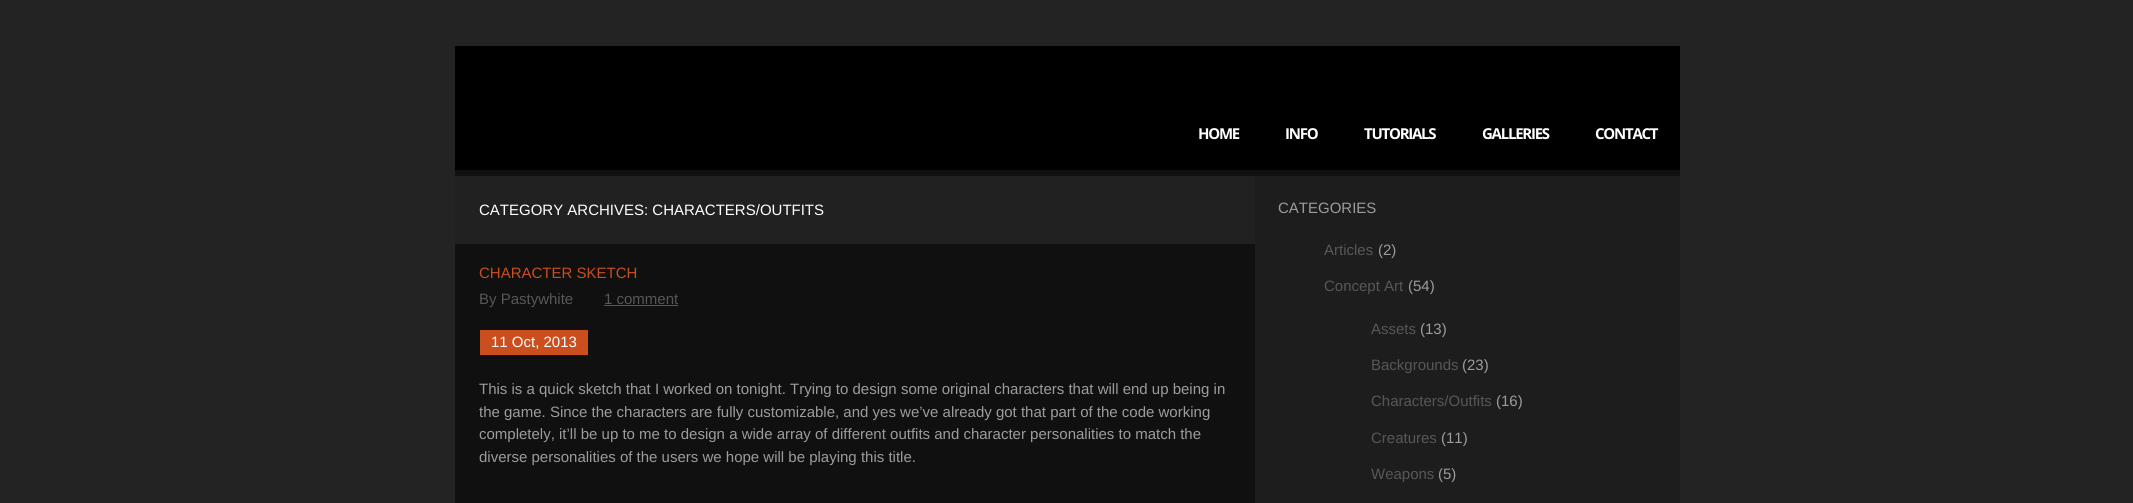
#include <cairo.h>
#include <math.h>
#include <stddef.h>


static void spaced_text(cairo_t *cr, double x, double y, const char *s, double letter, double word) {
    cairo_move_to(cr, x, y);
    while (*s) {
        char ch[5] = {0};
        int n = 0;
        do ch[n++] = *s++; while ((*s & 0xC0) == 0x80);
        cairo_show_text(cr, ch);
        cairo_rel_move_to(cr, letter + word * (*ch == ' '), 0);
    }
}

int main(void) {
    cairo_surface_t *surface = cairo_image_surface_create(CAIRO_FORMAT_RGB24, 2133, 503);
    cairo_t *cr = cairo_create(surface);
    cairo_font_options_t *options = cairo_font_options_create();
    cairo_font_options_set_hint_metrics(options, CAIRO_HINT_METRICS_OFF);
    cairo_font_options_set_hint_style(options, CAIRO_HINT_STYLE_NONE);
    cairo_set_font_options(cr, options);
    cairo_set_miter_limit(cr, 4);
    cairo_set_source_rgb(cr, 0.137, 0.137, 0.137);
    cairo_paint(cr);
    cairo_set_source_rgb(cr, 0, 0, 0);
    cairo_rectangle(cr, 455, 46, 1225, 124);
    cairo_fill(cr);
    cairo_select_font_face(cr, "Open Sans", CAIRO_FONT_SLANT_NORMAL, CAIRO_FONT_WEIGHT_BOLD);
    cairo_set_font_size(cr, 15);
    cairo_set_source_rgb(cr, 1, 1, 1);
    spaced_text(cr, 1198, 139, "HOME", -1.25, 0);
    spaced_text(cr, 1285, 139, "INFO", -1.25, 0);
    spaced_text(cr, 1364, 139, "TUTORIALS", -1.25, 0);
    spaced_text(cr, 1482, 139, "GALLERIES", -1.25, 0);
    spaced_text(cr, 1595, 139, "CONTACT", -1.25, 0);
    cairo_set_source_rgb(cr, 0.063, 0.063, 0.063);
    cairo_rectangle(cr, 455, 170, 1225, 333);
    cairo_fill(cr);
    cairo_set_source_rgb(cr, 0.129, 0.129, 0.129);
    cairo_rectangle(cr, 455, 176, 800, 68);
    cairo_fill(cr);
    cairo_select_font_face(cr, "Liberation Sans", CAIRO_FONT_SLANT_NORMAL, CAIRO_FONT_WEIGHT_NORMAL);
    cairo_set_source_rgb(cr, 1, 1, 1);
    cairo_move_to(cr, 479, 215);
    cairo_show_text(cr, "CATEGORY ARCHIVES: CHARACTERS/OUTFITS");
    cairo_set_source_rgb(cr, 0.796, 0.306, 0.122);
    cairo_move_to(cr, 479, 278);
    cairo_show_text(cr, "CHARACTER SKETCH");
    cairo_set_source_rgb(cr, 0.345, 0.337, 0.337);
    cairo_move_to(cr, 479, 304);
    cairo_show_text(cr, "By Pastywhite");
    cairo_move_to(cr, 604, 304);
    cairo_show_text(cr, "1 comment");
    cairo_rectangle(cr, 604, 305, 74, 1);
    cairo_fill(cr);
    cairo_set_source_rgb(cr, 0.796, 0.306, 0.122);
    cairo_rectangle(cr, 480, 330, 108, 25);
    cairo_fill(cr);
    cairo_set_source_rgb(cr, 1, 1, 1);
    cairo_move_to(cr, 491, 347);
    cairo_show_text(cr, "11 Oct, 2013");
    cairo_set_source_rgb(cr, 0.612, 0.612, 0.612);
    cairo_move_to(cr, 479, 394);
    cairo_show_text(cr, "This is a quick sketch that I worked on tonight. Trying to design some original characters that will end up being in");
    cairo_move_to(cr, 479, 417);
    cairo_show_text(cr, "the game. Since the characters are fully customizable, and yes we’ve already got that part of the code working");
    cairo_move_to(cr, 479, 439);
    cairo_show_text(cr, "completely, it’ll be up to me to design a wide array of different outfits and character personalities to match the");
    cairo_move_to(cr, 479, 462);
    cairo_show_text(cr, "diverse personalities of the users we hope will be playing this title.");
    cairo_set_source_rgb(cr, 0.114, 0.114, 0.114);
    cairo_rectangle(cr, 1255, 176, 425, 327);
    cairo_fill(cr);
    cairo_set_source_rgb(cr, 0.612, 0.612, 0.612);
    cairo_move_to(cr, 1278, 213);
    cairo_show_text(cr, "CATEGORIES");
    cairo_set_source_rgb(cr, 0.345, 0.337, 0.337);
    cairo_move_to(cr, 1324, 255);
    cairo_show_text(cr, "Articles");
    cairo_set_source_rgb(cr, 0.612, 0.612, 0.612);
    cairo_move_to(cr, 1378, 255);
    cairo_show_text(cr, "(2)");
    cairo_set_source_rgb(cr, 0.345, 0.337, 0.337);
    cairo_move_to(cr, 1324, 291);
    cairo_show_text(cr, "Concept Art");
    cairo_set_source_rgb(cr, 0.612, 0.612, 0.612);
    cairo_move_to(cr, 1408, 291);
    cairo_show_text(cr, "(54)");
    cairo_set_source_rgb(cr, 0.345, 0.337, 0.337);
    cairo_move_to(cr, 1371, 334);
    cairo_show_text(cr, "Assets");
    cairo_set_source_rgb(cr, 0.612, 0.612, 0.612);
    cairo_move_to(cr, 1420, 334);
    cairo_show_text(cr, "(13)");
    cairo_set_source_rgb(cr, 0.345, 0.337, 0.337);
    cairo_move_to(cr, 1371, 370);
    cairo_show_text(cr, "Backgrounds");
    cairo_set_source_rgb(cr, 0.612, 0.612, 0.612);
    cairo_move_to(cr, 1462, 370);
    cairo_show_text(cr, "(23)");
    cairo_set_source_rgb(cr, 0.345, 0.337, 0.337);
    cairo_move_to(cr, 1371, 406);
    cairo_show_text(cr, "Characters/Outfits");
    cairo_set_source_rgb(cr, 0.612, 0.612, 0.612);
    cairo_move_to(cr, 1496, 406);
    cairo_show_text(cr, "(16)");
    cairo_set_source_rgb(cr, 0.345, 0.337, 0.337);
    cairo_move_to(cr, 1371, 443);
    cairo_show_text(cr, "Creatures");
    cairo_set_source_rgb(cr, 0.612, 0.612, 0.612);
    cairo_move_to(cr, 1441, 443);
    cairo_show_text(cr, "(11)");
    cairo_set_source_rgb(cr, 0.345, 0.337, 0.337);
    cairo_move_to(cr, 1371, 479);
    cairo_show_text(cr, "Weapons");
    cairo_set_source_rgb(cr, 0.612, 0.612, 0.612);
    cairo_move_to(cr, 1438, 479);
    cairo_show_text(cr, "(5)");
    cairo_surface_write_to_png(surface, "page.png");
    cairo_font_options_destroy(options);
    cairo_destroy(cr);
    cairo_surface_destroy(surface);
    return 0;
}
